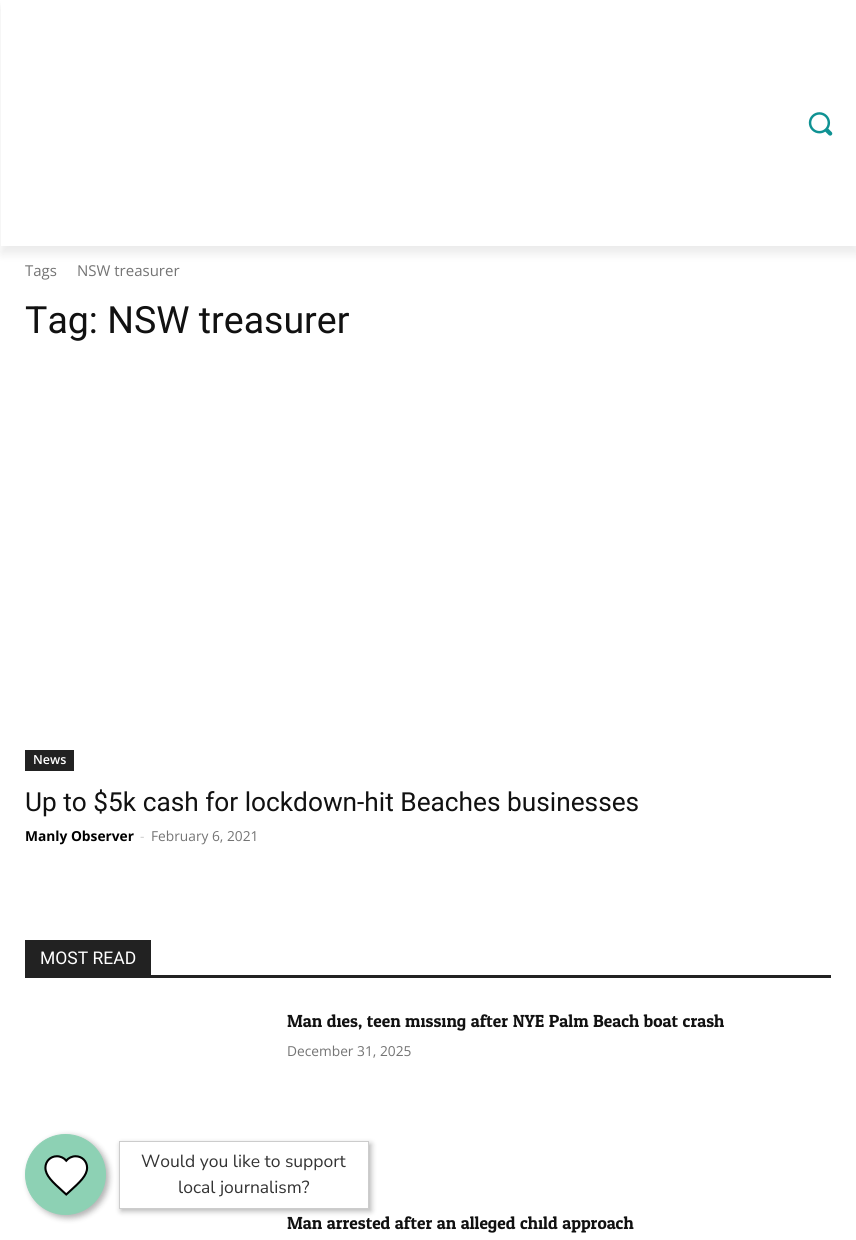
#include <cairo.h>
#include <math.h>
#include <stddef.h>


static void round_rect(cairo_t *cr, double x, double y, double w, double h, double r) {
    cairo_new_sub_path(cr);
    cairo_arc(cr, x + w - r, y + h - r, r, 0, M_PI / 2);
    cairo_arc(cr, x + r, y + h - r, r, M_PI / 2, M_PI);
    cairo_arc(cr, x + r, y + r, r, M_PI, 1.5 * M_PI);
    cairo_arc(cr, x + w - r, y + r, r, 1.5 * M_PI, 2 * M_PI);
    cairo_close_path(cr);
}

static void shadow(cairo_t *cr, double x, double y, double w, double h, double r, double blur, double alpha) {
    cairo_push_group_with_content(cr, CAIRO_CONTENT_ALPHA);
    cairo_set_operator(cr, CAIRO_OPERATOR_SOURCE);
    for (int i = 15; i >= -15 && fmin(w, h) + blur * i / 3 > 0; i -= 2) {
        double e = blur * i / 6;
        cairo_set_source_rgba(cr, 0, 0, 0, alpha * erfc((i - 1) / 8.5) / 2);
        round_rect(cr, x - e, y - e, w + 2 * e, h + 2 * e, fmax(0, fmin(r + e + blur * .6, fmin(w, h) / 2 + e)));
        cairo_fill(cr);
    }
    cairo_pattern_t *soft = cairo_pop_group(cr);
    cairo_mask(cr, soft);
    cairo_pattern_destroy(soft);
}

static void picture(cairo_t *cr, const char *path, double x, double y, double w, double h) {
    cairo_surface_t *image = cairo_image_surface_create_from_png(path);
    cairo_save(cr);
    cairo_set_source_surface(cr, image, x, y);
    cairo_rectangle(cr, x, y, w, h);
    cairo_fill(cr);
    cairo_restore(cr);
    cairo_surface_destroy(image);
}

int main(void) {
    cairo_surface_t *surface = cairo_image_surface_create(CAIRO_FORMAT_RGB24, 856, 1240);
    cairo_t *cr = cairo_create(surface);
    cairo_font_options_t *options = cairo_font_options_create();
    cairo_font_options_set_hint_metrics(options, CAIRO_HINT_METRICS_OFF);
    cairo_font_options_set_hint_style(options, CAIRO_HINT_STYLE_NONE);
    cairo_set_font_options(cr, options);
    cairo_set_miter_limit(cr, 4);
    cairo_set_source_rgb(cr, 1, 1, 1);
    cairo_paint(cr);
    picture(cr, "img1.png", 808, 112, 25, 24);
    cairo_save(cr);
    cairo_set_fill_rule(cr, CAIRO_FILL_RULE_EVEN_ODD);
    cairo_new_path(cr);
    cairo_move_to(cr, 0, 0);
    cairo_line_to(cr, 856, 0);
    cairo_line_to(cr, 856, 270);
    cairo_line_to(cr, 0, 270);
    cairo_close_path(cr);
    cairo_move_to(cr, 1, 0);
    cairo_line_to(cr, 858, 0);
    cairo_line_to(cr, 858, 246);
    cairo_line_to(cr, 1, 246);
    cairo_close_path(cr);
    cairo_clip(cr);
    cairo_set_source_rgb(cr, 0, 0, 0);
    shadow(cr, 1, 8, 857, 246, 0, 5, 0.08);
    cairo_restore(cr);
    cairo_select_font_face(cr, "Open Sans", CAIRO_FONT_SLANT_NORMAL, CAIRO_FONT_WEIGHT_NORMAL);
    cairo_set_font_size(cr, 15);
    cairo_set_source_rgb(cr, 0.455, 0.455, 0.455);
    cairo_move_to(cr, 25, 276);
    cairo_show_text(cr, "Tags");
    cairo_move_to(cr, 77, 276);
    cairo_show_text(cr, "NSW treasurer");
    cairo_select_font_face(cr, "Roboto", CAIRO_FONT_SLANT_NORMAL, CAIRO_FONT_WEIGHT_NORMAL);
    cairo_set_font_size(cr, 37.5);
    cairo_set_source_rgb(cr, 0.067, 0.067, 0.067);
    cairo_move_to(cr, 25, 333);
    cairo_show_text(cr, "Tag: NSW treasurer");
    cairo_set_source_rgb(cr, 0.133, 0.133, 0.133);
    cairo_rectangle(cr, 25, 750, 49, 21);
    cairo_fill(cr);
    cairo_select_font_face(cr, "Open Sans SemiBold", CAIRO_FONT_SLANT_NORMAL, CAIRO_FONT_WEIGHT_NORMAL);
    cairo_set_font_size(cr, 12.5);
    cairo_set_source_rgb(cr, 1, 1, 1);
    cairo_move_to(cr, 33, 764);
    cairo_show_text(cr, "News");
    cairo_select_font_face(cr, "Roboto", CAIRO_FONT_SLANT_NORMAL, CAIRO_FONT_WEIGHT_NORMAL);
    cairo_set_font_size(cr, 26.25);
    cairo_set_source_rgb(cr, 0.067, 0.067, 0.067);
    cairo_move_to(cr, 25, 811);
    cairo_show_text(cr, "Up to $5k cash for lockdown-hit Beaches businesses");
    cairo_select_font_face(cr, "Open Sans", CAIRO_FONT_SLANT_NORMAL, CAIRO_FONT_WEIGHT_BOLD);
    cairo_set_font_size(cr, 13.75);
    cairo_set_source_rgb(cr, 0, 0, 0);
    cairo_move_to(cr, 25, 841);
    cairo_show_text(cr, "Manly Observer");
    cairo_select_font_face(cr, "Open Sans", CAIRO_FONT_SLANT_NORMAL, CAIRO_FONT_WEIGHT_NORMAL);
    cairo_set_source_rgb(cr, 0.8, 0.8, 0.8);
    cairo_move_to(cr, 140, 841);
    cairo_show_text(cr, "-");
    cairo_set_source_rgb(cr, 0.455, 0.455, 0.455);
    cairo_move_to(cr, 151, 841);
    cairo_show_text(cr, "February 6, 2021");
    cairo_set_source_rgb(cr, 0.133, 0.133, 0.133);
    cairo_rectangle(cr, 25, 975, 806, 3);
    cairo_fill(cr);
    cairo_rectangle(cr, 25, 940, 126, 35);
    cairo_fill(cr);
    cairo_select_font_face(cr, "Roboto", CAIRO_FONT_SLANT_NORMAL, CAIRO_FONT_WEIGHT_NORMAL);
    cairo_set_font_size(cr, 17.5);
    cairo_set_source_rgb(cr, 1, 1, 1);
    cairo_move_to(cr, 40, 964);
    cairo_show_text(cr, "MOST READ");
    cairo_select_font_face(cr, "Odor Mean Chey", CAIRO_FONT_SLANT_NORMAL, CAIRO_FONT_WEIGHT_NORMAL);
    cairo_set_source_rgb(cr, 0.067, 0.067, 0.067);
    cairo_move_to(cr, 287, 1027);
    cairo_show_text(cr, "Man dies, teen missing after NYE Palm Beach boat crash");
    cairo_select_font_face(cr, "Open Sans", CAIRO_FONT_SLANT_NORMAL, CAIRO_FONT_WEIGHT_NORMAL);
    cairo_set_font_size(cr, 13.75);
    cairo_set_source_rgb(cr, 0.455, 0.455, 0.455);
    cairo_move_to(cr, 287, 1056);
    cairo_show_text(cr, "December 31, 2025");
    cairo_select_font_face(cr, "Odor Mean Chey", CAIRO_FONT_SLANT_NORMAL, CAIRO_FONT_WEIGHT_NORMAL);
    cairo_set_font_size(cr, 17.5);
    cairo_set_source_rgb(cr, 0.067, 0.067, 0.067);
    cairo_move_to(cr, 287, 1229);
    cairo_show_text(cr, "Man arrested after an alleged child approach");
    cairo_set_source_rgb(cr, 0, 0, 0);
    shadow(cr, 28, 1136, 81, 82, 40.5, 3, 0.3);
    cairo_set_source_rgb(cr, 0.553, 0.82, 0.706);
    cairo_arc(cr, 65.5, 1174.5, 40, 0, 2 * M_PI);
    cairo_fill_preserve(cr);
    cairo_set_line_width(cr, 1);
    cairo_stroke(cr);
    picture(cr, "img2.png", 44, 1155, 45, 41);
    cairo_set_source_rgb(cr, 0, 0, 0);
    shadow(cr, 121, 1144, 250, 67, 0, 3, 0.3);
    cairo_set_source_rgb(cr, 1, 1, 1);
    cairo_rectangle(cr, 119.5, 1141.5, 249, 67);
    cairo_fill_preserve(cr);
    cairo_set_source_rgb(cr, 0.8, 0.8, 0.8);
    cairo_stroke(cr);
    cairo_select_font_face(cr, "Nunito Sans", CAIRO_FONT_SLANT_NORMAL, CAIRO_FONT_WEIGHT_NORMAL);
    cairo_set_source_rgb(cr, 0.2, 0.2, 0.2);
    cairo_move_to(cr, 141, 1167);
    cairo_show_text(cr, "Would you like to support");
    cairo_move_to(cr, 178, 1193);
    cairo_show_text(cr, "local journalism?");
    cairo_surface_write_to_png(surface, "page.png");
    cairo_font_options_destroy(options);
    cairo_destroy(cr);
    cairo_surface_destroy(surface);
    return 0;
}
